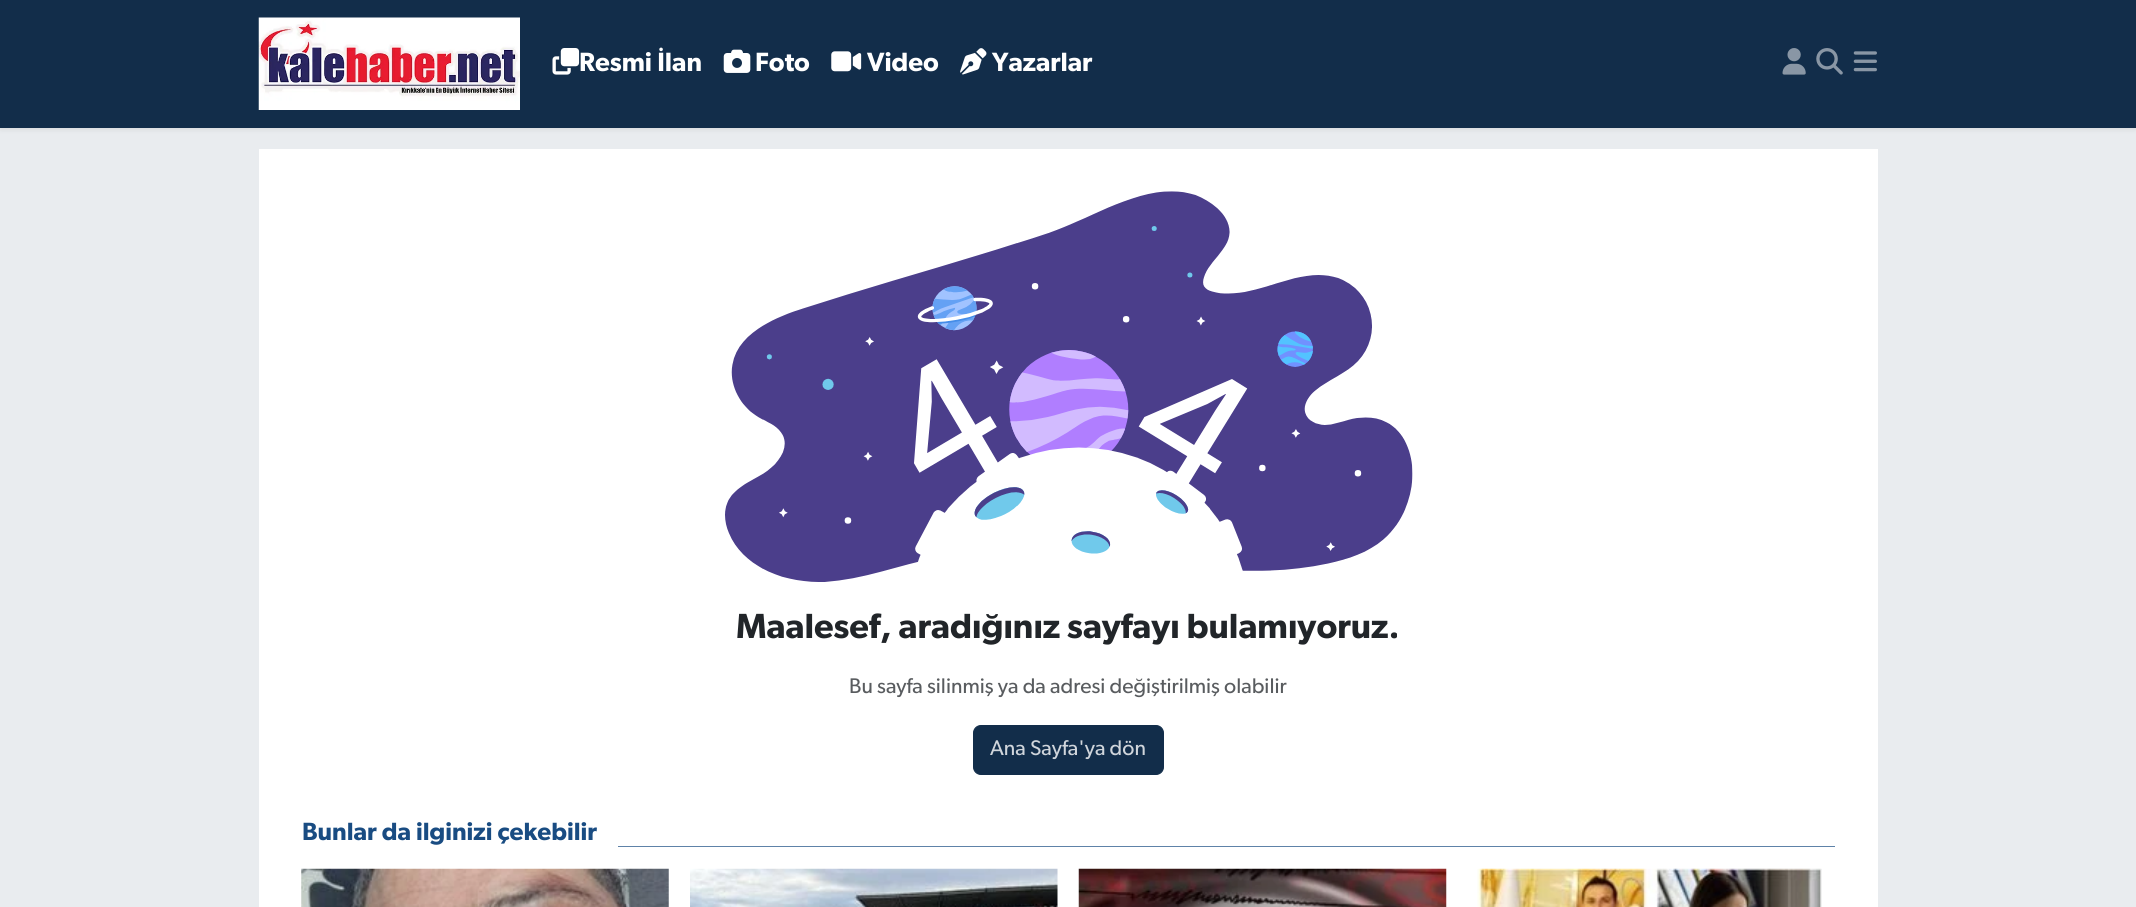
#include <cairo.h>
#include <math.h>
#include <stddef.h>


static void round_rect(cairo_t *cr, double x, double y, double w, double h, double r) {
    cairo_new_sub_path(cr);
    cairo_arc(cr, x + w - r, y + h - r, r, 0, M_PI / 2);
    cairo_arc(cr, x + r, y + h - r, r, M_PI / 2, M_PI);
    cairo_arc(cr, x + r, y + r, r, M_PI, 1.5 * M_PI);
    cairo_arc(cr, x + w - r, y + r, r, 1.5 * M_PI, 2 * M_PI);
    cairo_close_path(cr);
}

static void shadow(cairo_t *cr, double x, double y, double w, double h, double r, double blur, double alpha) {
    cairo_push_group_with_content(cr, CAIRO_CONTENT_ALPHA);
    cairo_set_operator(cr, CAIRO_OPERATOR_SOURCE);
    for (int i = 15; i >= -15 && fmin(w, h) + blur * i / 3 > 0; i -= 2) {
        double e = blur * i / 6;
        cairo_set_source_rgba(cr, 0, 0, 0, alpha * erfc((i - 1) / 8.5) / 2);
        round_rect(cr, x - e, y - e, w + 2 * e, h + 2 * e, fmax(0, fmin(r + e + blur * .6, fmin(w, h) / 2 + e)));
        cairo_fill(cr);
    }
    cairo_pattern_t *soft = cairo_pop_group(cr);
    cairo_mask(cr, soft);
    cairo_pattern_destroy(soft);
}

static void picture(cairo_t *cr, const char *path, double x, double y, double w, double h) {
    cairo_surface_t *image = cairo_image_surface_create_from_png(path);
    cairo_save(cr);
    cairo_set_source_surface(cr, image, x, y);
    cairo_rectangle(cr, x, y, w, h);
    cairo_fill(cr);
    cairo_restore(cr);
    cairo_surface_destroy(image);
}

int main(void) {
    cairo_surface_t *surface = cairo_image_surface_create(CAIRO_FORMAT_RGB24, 2136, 907);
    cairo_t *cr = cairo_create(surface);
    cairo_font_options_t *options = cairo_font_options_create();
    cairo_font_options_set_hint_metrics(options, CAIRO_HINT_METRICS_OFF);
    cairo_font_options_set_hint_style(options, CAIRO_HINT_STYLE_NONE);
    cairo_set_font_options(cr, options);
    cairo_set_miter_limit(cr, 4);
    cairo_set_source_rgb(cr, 0.914, 0.925, 0.937);
    cairo_paint(cr);
    cairo_set_source_rgb(cr, 0, 0, 0);
    shadow(cr, 0, 3, 2136, 127, 0, 2.5, 0.07);
    cairo_set_source_rgb(cr, 0.071, 0.176, 0.29);
    cairo_rectangle(cr, 0, 0, 2136, 128);
    cairo_fill(cr);
    picture(cr, "img1.png", 258, 17, 262, 93);
    picture(cr, "img2.png", 552, 48, 28, 27);
    cairo_select_font_face(cr, "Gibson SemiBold", CAIRO_FONT_SLANT_NORMAL, CAIRO_FONT_WEIGHT_NORMAL);
    cairo_set_font_size(cr, 26.5);
    cairo_set_source_rgb(cr, 1, 1, 1);
    cairo_move_to(cr, 579, 71);
    cairo_show_text(cr, "Resmi İlan");
    picture(cr, "img3.png", 723, 49, 28, 24);
    cairo_move_to(cr, 755, 71);
    cairo_show_text(cr, "Foto");
    picture(cr, "img4.png", 831, 51, 31, 21);
    cairo_move_to(cr, 867, 71);
    cairo_show_text(cr, "Video");
    picture(cr, "img5.png", 960, 48, 27, 27);
    cairo_move_to(cr, 992, 71);
    cairo_show_text(cr, "Yazarlar");
    picture(cr, "img6.png", 1782, 48, 24, 27);
    picture(cr, "img7.png", 1816, 48, 27, 27);
    picture(cr, "img8.png", 1853, 51, 24, 21);
    cairo_rectangle(cr, 259, 149, 1619, 758);
    cairo_fill(cr);
    picture(cr, "img9.png", 725, 191, 688, 391);
    cairo_set_font_size(cr, 35);
    cairo_set_source_rgb(cr, 0.129, 0.145, 0.161);
    cairo_move_to(cr, 736, 638);
    cairo_show_text(cr, "Maalesef, aradığınız sayfayı bulamıyoruz.");
    cairo_select_font_face(cr, "Gibson", CAIRO_FONT_SLANT_NORMAL, CAIRO_FONT_WEIGHT_NORMAL);
    cairo_set_font_size(cr, 21.25);
    cairo_set_source_rgb(cr, 0.349, 0.361, 0.373);
    cairo_move_to(cr, 849, 693);
    cairo_show_text(cr, "Bu sayfa silinmiş ya da adresi değiştirilmiş olabilir");
    cairo_set_source_rgb(cr, 0.071, 0.176, 0.29);
    round_rect(cr, 973.5, 725.5, 190, 49, 7.5);
    cairo_fill_preserve(cr);
    cairo_set_line_width(cr, 1);
    cairo_stroke(cr);
    cairo_set_source_rgb(cr, 0.816, 0.835, 0.859);
    cairo_move_to(cr, 990, 755);
    cairo_show_text(cr, "Ana Sayfa'ya dön");
    cairo_select_font_face(cr, "Gibson SemiBold", CAIRO_FONT_SLANT_NORMAL, CAIRO_FONT_WEIGHT_NORMAL);
    cairo_set_font_size(cr, 25);
    cairo_set_source_rgb(cr, 0.098, 0.298, 0.51);
    cairo_move_to(cr, 302, 840);
    cairo_show_text(cr, "Bunlar da ilginizi çekebilir");
    cairo_set_source_rgb(cr, 0.369, 0.51, 0.659);
    cairo_rectangle(cr, 618, 846, 1217, 1);
    cairo_fill(cr);
    picture(cr, "img10.png", 301, 868, 368, 39);
    picture(cr, "img11.png", 690, 868, 368, 39);
    picture(cr, "img12.png", 1078, 868, 369, 39);
    picture(cr, "img13.png", 1477, 868, 345, 39);
    cairo_surface_write_to_png(surface, "page.png");
    cairo_font_options_destroy(options);
    cairo_destroy(cr);
    cairo_surface_destroy(surface);
    return 0;
}
